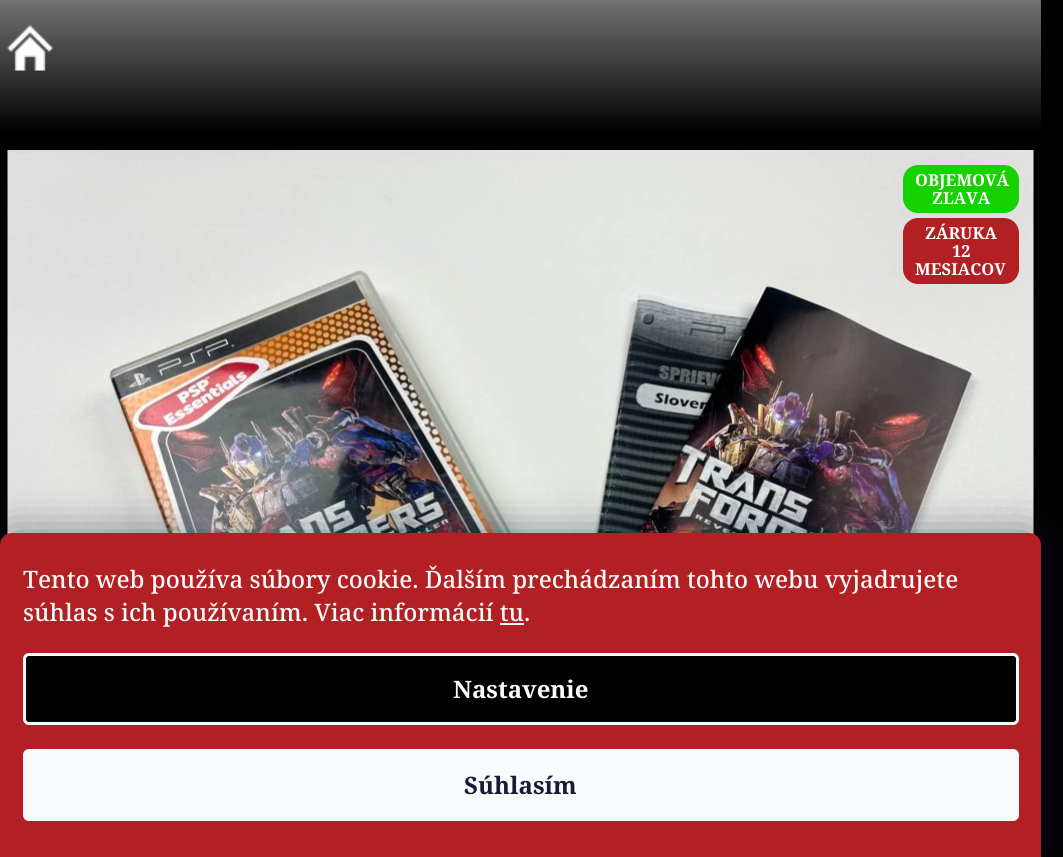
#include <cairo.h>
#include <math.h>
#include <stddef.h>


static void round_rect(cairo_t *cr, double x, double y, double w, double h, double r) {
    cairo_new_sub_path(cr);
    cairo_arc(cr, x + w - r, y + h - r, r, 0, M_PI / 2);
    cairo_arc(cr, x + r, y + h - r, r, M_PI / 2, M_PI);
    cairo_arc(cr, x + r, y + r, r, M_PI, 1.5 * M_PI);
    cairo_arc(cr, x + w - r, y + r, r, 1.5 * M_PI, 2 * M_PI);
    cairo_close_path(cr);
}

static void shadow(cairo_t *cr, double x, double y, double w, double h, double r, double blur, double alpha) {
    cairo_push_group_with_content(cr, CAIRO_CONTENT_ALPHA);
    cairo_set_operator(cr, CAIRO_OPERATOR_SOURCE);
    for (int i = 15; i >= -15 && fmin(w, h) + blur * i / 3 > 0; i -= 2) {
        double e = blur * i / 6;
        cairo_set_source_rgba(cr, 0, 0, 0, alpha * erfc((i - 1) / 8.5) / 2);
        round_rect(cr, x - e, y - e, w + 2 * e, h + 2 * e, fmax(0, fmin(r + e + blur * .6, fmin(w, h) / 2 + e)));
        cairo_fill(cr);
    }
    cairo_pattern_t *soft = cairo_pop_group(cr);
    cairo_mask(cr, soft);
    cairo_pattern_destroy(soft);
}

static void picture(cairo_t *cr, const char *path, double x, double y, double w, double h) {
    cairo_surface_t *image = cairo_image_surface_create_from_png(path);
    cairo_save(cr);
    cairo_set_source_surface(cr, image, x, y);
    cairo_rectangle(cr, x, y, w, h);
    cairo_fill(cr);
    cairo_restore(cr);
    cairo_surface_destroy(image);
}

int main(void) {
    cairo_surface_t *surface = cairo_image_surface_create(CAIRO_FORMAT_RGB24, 1063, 857);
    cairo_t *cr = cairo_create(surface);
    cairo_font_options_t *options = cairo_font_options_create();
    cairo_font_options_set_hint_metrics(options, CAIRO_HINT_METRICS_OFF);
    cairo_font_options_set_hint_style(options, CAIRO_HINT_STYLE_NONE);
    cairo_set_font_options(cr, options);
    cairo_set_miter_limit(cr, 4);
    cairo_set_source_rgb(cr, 0, 0, 0);
    cairo_paint(cr);
    picture(cr, "img1.png", 0, 0, 1041, 129);
    picture(cr, "img2.png", 7, 25, 46, 46);
    picture(cr, "img3.png", 7, 150, 1027, 385);
    cairo_set_source_rgb(cr, 0.094, 0.82, 0);
    round_rect(cr, 903, 165, 116, 48, 15);
    cairo_fill(cr);
    cairo_select_font_face(cr, "Noto Serif", CAIRO_FONT_SLANT_NORMAL, CAIRO_FONT_WEIGHT_BOLD);
    cairo_set_font_size(cr, 16.5);
    cairo_set_source_rgb(cr, 1, 1, 1);
    cairo_move_to(cr, 915, 186);
    cairo_show_text(cr, "OBJEMOVÁ");
    cairo_move_to(cr, 932, 204);
    cairo_show_text(cr, "ZĽAVA");
    cairo_set_source_rgb(cr, 0.702, 0.125, 0.141);
    round_rect(cr, 903, 218, 116, 66, 15);
    cairo_fill(cr);
    cairo_set_source_rgb(cr, 1, 1, 1);
    cairo_move_to(cr, 925, 239);
    cairo_show_text(cr, "ZÁRUKA");
    cairo_move_to(cr, 952, 257);
    cairo_show_text(cr, "12");
    cairo_move_to(cr, 915, 275);
    cairo_show_text(cr, "MESIACOV");
    cairo_set_source_rgb(cr, 0.106, 0.098, 0.224);
    shadow(cr, 0, 533, 1041, 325, 12, 22.5, 0.5);
    cairo_set_source_rgb(cr, 0.702, 0.125, 0.141);
    cairo_new_path(cr);
    cairo_move_to(cr, 12, 533);
    cairo_line_to(cr, 1029, 533);
    cairo_curve_to(cr, 1035.5, 533, 1041, 538.5, 1041, 545);
    cairo_line_to(cr, 1041, 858);
    cairo_line_to(cr, 0, 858);
    cairo_line_to(cr, 0, 545);
    cairo_curve_to(cr, 0, 538.5, 5.5, 533, 12, 533);
    cairo_close_path(cr);
    cairo_fill(cr);
    cairo_select_font_face(cr, "Noto Serif Medium", CAIRO_FONT_SLANT_NORMAL, CAIRO_FONT_WEIGHT_NORMAL);
    cairo_set_font_size(cr, 24);
    cairo_set_source_rgb(cr, 0.973, 0.98, 0.984);
    cairo_move_to(cr, 23, 588);
    cairo_show_text(cr, "Tento web používa súbory cookie. Ďalším prechádzaním tohto webu vyjadrujete");
    cairo_move_to(cr, 23, 621);
    cairo_show_text(cr, "súhlas s ich používaním. Viac informácií tu.");
    cairo_rectangle(cr, 500, 623, 24, 2);
    cairo_fill(cr);
    cairo_set_source_rgb(cr, 0, 0, 0);
    round_rect(cr, 24.5, 654.5, 993, 69, 4.5);
    cairo_fill_preserve(cr);
    cairo_set_source_rgb(cr, 0.973, 0.98, 0.984);
    cairo_set_line_width(cr, 3);
    cairo_stroke(cr);
    cairo_select_font_face(cr, "Noto Serif", CAIRO_FONT_SLANT_NORMAL, CAIRO_FONT_WEIGHT_BOLD);
    cairo_move_to(cr, 453, 698);
    cairo_show_text(cr, "Nastavenie");
    round_rect(cr, 23, 749, 996, 72, 6);
    cairo_fill(cr);
    cairo_set_source_rgb(cr, 0.102, 0.098, 0.216);
    cairo_move_to(cr, 464, 794);
    cairo_show_text(cr, "Súhlasím");
    cairo_surface_write_to_png(surface, "page.png");
    cairo_font_options_destroy(options);
    cairo_destroy(cr);
    cairo_surface_destroy(surface);
    return 0;
}
